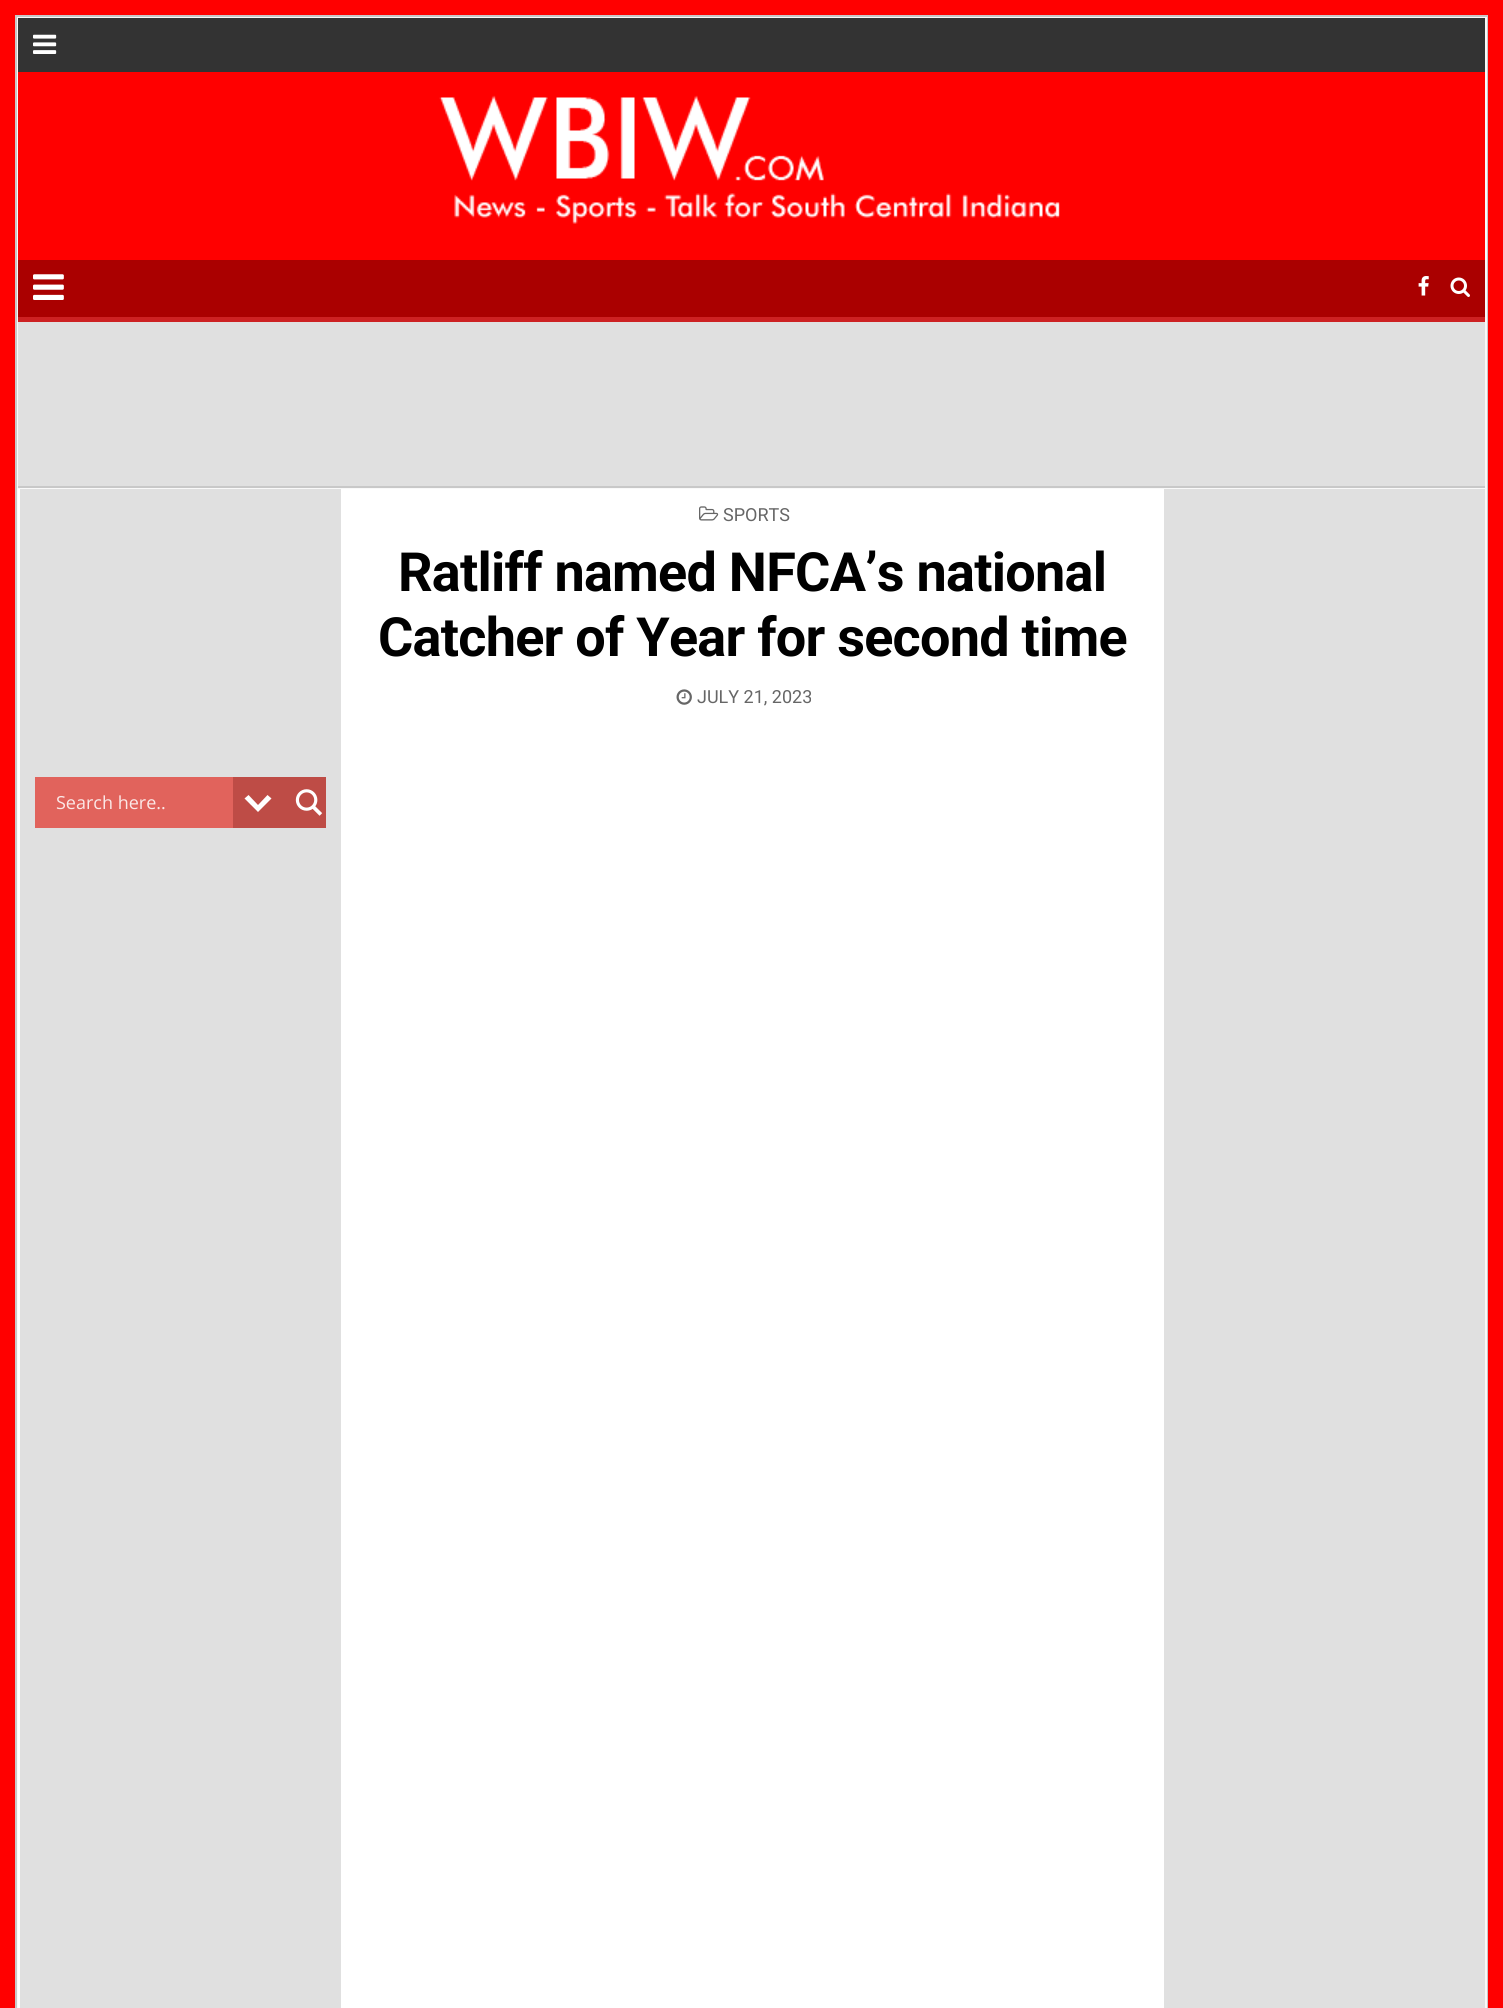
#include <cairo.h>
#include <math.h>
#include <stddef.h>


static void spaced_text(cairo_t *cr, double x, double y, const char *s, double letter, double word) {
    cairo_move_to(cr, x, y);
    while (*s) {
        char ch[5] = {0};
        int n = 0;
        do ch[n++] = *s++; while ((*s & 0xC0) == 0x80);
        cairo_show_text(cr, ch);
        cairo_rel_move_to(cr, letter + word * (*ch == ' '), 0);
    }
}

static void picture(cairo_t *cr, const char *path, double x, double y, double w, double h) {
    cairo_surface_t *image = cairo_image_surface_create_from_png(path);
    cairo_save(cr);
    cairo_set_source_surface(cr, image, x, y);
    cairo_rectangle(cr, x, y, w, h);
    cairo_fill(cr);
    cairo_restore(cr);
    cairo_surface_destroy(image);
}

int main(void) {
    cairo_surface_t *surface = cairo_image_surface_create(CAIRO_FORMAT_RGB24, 1503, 2008);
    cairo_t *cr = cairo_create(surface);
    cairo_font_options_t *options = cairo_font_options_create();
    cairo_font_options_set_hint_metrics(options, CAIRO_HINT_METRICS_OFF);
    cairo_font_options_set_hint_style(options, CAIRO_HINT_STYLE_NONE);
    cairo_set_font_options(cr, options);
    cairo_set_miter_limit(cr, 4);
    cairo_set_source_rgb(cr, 1, 0, 0);
    cairo_paint(cr);
    cairo_rectangle(cr, 16, 16, 1471, 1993);
    cairo_set_source_rgb(cr, 0.784, 0.784, 0.784);
    cairo_stroke(cr);
    cairo_rectangle(cr, 18, 18, 1468, 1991);
    cairo_set_source_rgb(cr, 0.976, 0.976, 0.976);
    cairo_stroke(cr);
    cairo_set_source_rgb(cr, 0.2, 0.2, 0.2);
    cairo_rectangle(cr, 18, 18, 1467, 54);
    cairo_fill(cr);
    picture(cr, "img1.png", 33, 34, 24, 20);
    cairo_set_source_rgb(cr, 1, 0, 0);
    cairo_rectangle(cr, 18, 72, 1, 188);
    cairo_fill(cr);
    picture(cr, "img2.png", 439, 95, 621, 129);
    cairo_set_source_rgb(cr, 0.667, 0, 0);
    cairo_rectangle(cr, 18, 260, 1467, 57);
    cairo_fill(cr);
    cairo_set_source_rgb(cr, 0.804, 0.129, 0.133);
    cairo_rectangle(cr, 18, 317, 1467, 5);
    cairo_fill(cr);
    picture(cr, "img3.png", 33, 274, 31, 26);
    picture(cr, "img4.png", 1418, 276, 11, 20);
    picture(cr, "img5.png", 1450, 277, 20, 20);
    cairo_set_source_rgb(cr, 0.976, 0.976, 0.976);
    cairo_rectangle(cr, 18, 488, 1467, 1);
    cairo_fill(cr);
    cairo_set_source_rgb(cr, 0.878, 0.878, 0.878);
    cairo_rectangle(cr, 18, 322, 1467, 164);
    cairo_fill(cr);
    cairo_set_source_rgb(cr, 0.784, 0.784, 0.784);
    cairo_rectangle(cr, 18, 486, 1467, 2);
    cairo_fill(cr);
    cairo_set_source_rgb(cr, 1, 1, 1);
    cairo_rectangle(cr, 18, 489, 1146, 1519);
    cairo_fill(cr);
    picture(cr, "img6.png", 699, 506, 20, 15);
    cairo_select_font_face(cr, "Roboto", CAIRO_FONT_SLANT_NORMAL, CAIRO_FONT_WEIGHT_NORMAL);
    cairo_set_font_size(cr, 18);
    cairo_set_source_rgb(cr, 0.4, 0.4, 0.4);
    cairo_move_to(cr, 723, 521);
    cairo_show_text(cr, "SPORTS");
    cairo_select_font_face(cr, "Roboto", CAIRO_FONT_SLANT_NORMAL, CAIRO_FONT_WEIGHT_BOLD);
    cairo_set_font_size(cr, 54);
    cairo_set_source_rgb(cr, 0, 0, 0);
    spaced_text(cr, 398, 591, "Ratliff named NFCA’s national", -0.75, 0);
    spaced_text(cr, 378, 656, "Catcher of Year for second time", -0.75, 0);
    picture(cr, "img7.png", 676, 689, 16, 16);
    cairo_select_font_face(cr, "Roboto", CAIRO_FONT_SLANT_NORMAL, CAIRO_FONT_WEIGHT_NORMAL);
    cairo_set_font_size(cr, 18);
    cairo_set_source_rgb(cr, 0.4, 0.4, 0.4);
    cairo_move_to(cr, 697, 703);
    cairo_show_text(cr, "JULY 21, 2023");
    cairo_set_source_rgb(cr, 0.878, 0.878, 0.878);
    cairo_rectangle(cr, 1164, 489, 321, 1519);
    cairo_fill(cr);
    cairo_rectangle(cr, 20, 489, 321, 1519);
    cairo_fill(cr);
    cairo_set_source_rgb(cr, 0.882, 0.388, 0.361);
    cairo_rectangle(cr, 35, 777, 198, 51);
    cairo_fill(cr);
    cairo_set_source_rgb(cr, 0.745, 0.298, 0.275);
    cairo_rectangle(cr, 233, 777, 93, 51);
    cairo_fill(cr);
    cairo_set_source_rgb(cr, 1, 1, 1);
    cairo_new_path(cr);
    cairo_move_to(cr, 267.5, 795);
    cairo_line_to(cr, 271.5, 798.5);
    cairo_line_to(cr, 258, 812);
    cairo_line_to(cr, 244.5, 798.5);
    cairo_line_to(cr, 248.5, 795);
    cairo_line_to(cr, 258, 805);
    cairo_close_path(cr);
    cairo_fill(cr);
    cairo_select_font_face(cr, "Open Sans", CAIRO_FONT_SLANT_NORMAL, CAIRO_FONT_WEIGHT_NORMAL);
    cairo_set_source_rgb(cr, 0.984, 0.91, 0.906);
    cairo_move_to(cr, 56, 809);
    cairo_show_text(cr, "Search here..");
    picture(cr, "img8.png", 295, 789, 28, 27);
    cairo_surface_write_to_png(surface, "page.png");
    cairo_font_options_destroy(options);
    cairo_destroy(cr);
    cairo_surface_destroy(surface);
    return 0;
}
